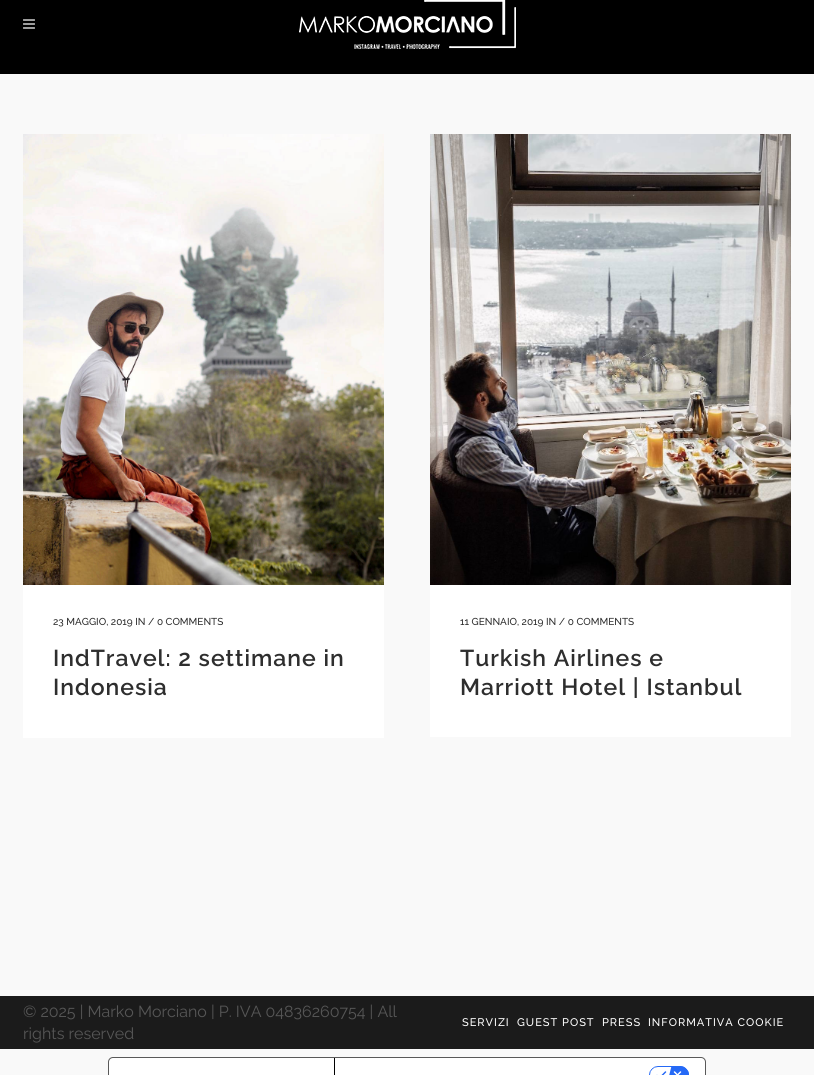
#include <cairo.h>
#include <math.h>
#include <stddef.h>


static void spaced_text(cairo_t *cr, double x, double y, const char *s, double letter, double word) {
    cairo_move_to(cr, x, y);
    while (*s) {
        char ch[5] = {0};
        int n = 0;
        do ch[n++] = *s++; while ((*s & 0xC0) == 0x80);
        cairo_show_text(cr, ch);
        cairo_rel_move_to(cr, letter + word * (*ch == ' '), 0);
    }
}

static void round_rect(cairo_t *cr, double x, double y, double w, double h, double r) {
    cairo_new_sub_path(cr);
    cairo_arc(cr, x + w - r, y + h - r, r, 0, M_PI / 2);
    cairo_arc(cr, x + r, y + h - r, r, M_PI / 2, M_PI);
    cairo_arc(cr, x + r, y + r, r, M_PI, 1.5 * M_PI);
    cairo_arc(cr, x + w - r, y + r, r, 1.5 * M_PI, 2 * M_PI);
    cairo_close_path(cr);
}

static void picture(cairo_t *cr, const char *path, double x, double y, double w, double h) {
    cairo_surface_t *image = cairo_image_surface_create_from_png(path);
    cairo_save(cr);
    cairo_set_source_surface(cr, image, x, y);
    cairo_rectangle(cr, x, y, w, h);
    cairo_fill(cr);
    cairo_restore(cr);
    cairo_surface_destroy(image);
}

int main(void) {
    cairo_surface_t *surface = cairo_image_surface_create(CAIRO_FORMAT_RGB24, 814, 1075);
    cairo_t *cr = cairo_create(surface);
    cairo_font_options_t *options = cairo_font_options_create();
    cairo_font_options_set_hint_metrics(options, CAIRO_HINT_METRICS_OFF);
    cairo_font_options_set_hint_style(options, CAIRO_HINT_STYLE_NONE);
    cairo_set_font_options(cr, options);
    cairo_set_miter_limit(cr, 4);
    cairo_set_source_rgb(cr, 0.976, 0.976, 0.976);
    cairo_paint(cr);
    cairo_set_source_rgb(cr, 0, 0, 0);
    cairo_rectangle(cr, 0, 0, 814, 74);
    cairo_fill(cr);
    picture(cr, "img1.png", 23, 19, 12, 10);
    picture(cr, "img2.png", 299, 0, 217, 49);
    picture(cr, "img3.png", 23, 134, 361, 451);
    cairo_set_source_rgb(cr, 1, 1, 1);
    cairo_rectangle(cr, 23, 585, 361, 153);
    cairo_fill(cr);
    cairo_select_font_face(cr, "Raleway Medium", CAIRO_FONT_SLANT_NORMAL, CAIRO_FONT_WEIGHT_NORMAL);
    cairo_set_font_size(cr, 10);
    cairo_set_source_rgb(cr, 0.18, 0.18, 0.18);
    cairo_move_to(cr, 53, 625);
    cairo_show_text(cr, "23 MAGGIO, 2019 IN / 0 COMMENTS");
    cairo_select_font_face(cr, "Raleway SemiBold", CAIRO_FONT_SLANT_NORMAL, CAIRO_FONT_WEIGHT_NORMAL);
    cairo_set_font_size(cr, 23);
    spaced_text(cr, 53, 666, "IndTravel: 2 settimane in", 1, 0);
    spaced_text(cr, 53, 695, "Indonesia", 1, 0);
    picture(cr, "img4.png", 430, 134, 361, 451);
    cairo_set_source_rgb(cr, 1, 1, 1);
    cairo_rectangle(cr, 430, 585, 361, 152);
    cairo_fill(cr);
    cairo_select_font_face(cr, "Raleway Medium", CAIRO_FONT_SLANT_NORMAL, CAIRO_FONT_WEIGHT_NORMAL);
    cairo_set_font_size(cr, 10);
    cairo_set_source_rgb(cr, 0.18, 0.18, 0.18);
    cairo_move_to(cr, 460, 625);
    cairo_show_text(cr, "11 GENNAIO, 2019 IN / 0 COMMENTS");
    cairo_select_font_face(cr, "Raleway SemiBold", CAIRO_FONT_SLANT_NORMAL, CAIRO_FONT_WEIGHT_NORMAL);
    cairo_set_font_size(cr, 23);
    spaced_text(cr, 460, 666, "Turkish Airlines e", 1, 0);
    spaced_text(cr, 460, 695, "Marriott Hotel | Istanbul", 1, 0);
    cairo_set_source_rgb(cr, 0.106, 0.106, 0.106);
    cairo_rectangle(cr, 0, 996, 814, 53);
    cairo_fill(cr);
    cairo_select_font_face(cr, "Raleway", CAIRO_FONT_SLANT_NORMAL, CAIRO_FONT_WEIGHT_NORMAL);
    cairo_set_font_size(cr, 16);
    cairo_set_source_rgb(cr, 0.337, 0.337, 0.337);
    cairo_move_to(cr, 23, 1017);
    cairo_show_text(cr, "© 2025 | Marko Morciano | P. IVA 04836260754 | All");
    cairo_move_to(cr, 23, 1039);
    cairo_show_text(cr, "rights reserved");
    cairo_select_font_face(cr, "Raleway Medium", CAIRO_FONT_SLANT_NORMAL, CAIRO_FONT_WEIGHT_NORMAL);
    cairo_set_font_size(cr, 11);
    cairo_set_source_rgb(cr, 1, 1, 1);
    spaced_text(cr, 462, 1026, "SERVIZI", 1, 0);
    spaced_text(cr, 517, 1026, "GUEST POST", 1, 0);
    spaced_text(cr, 602, 1026, "PRESS", 1, 0);
    spaced_text(cr, 648, 1026, "INFORMATIVA COOKIE", 1, 0);
    round_rect(cr, 108.5, 1057.5, 597, 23, 4.5);
    cairo_fill_preserve(cr);
    cairo_set_source_rgb(cr, 0.349, 0.349, 0.349);
    cairo_set_line_width(cr, 1);
    cairo_stroke(cr);
    cairo_set_source_rgb(cr, 0, 0, 0);
    cairo_rectangle(cr, 334, 1058, 1, 17);
    cairo_fill(cr);
    picture(cr, "img5.png", 649, 1066, 40, 9);
    cairo_surface_write_to_png(surface, "page.png");
    cairo_font_options_destroy(options);
    cairo_destroy(cr);
    cairo_surface_destroy(surface);
    return 0;
}
